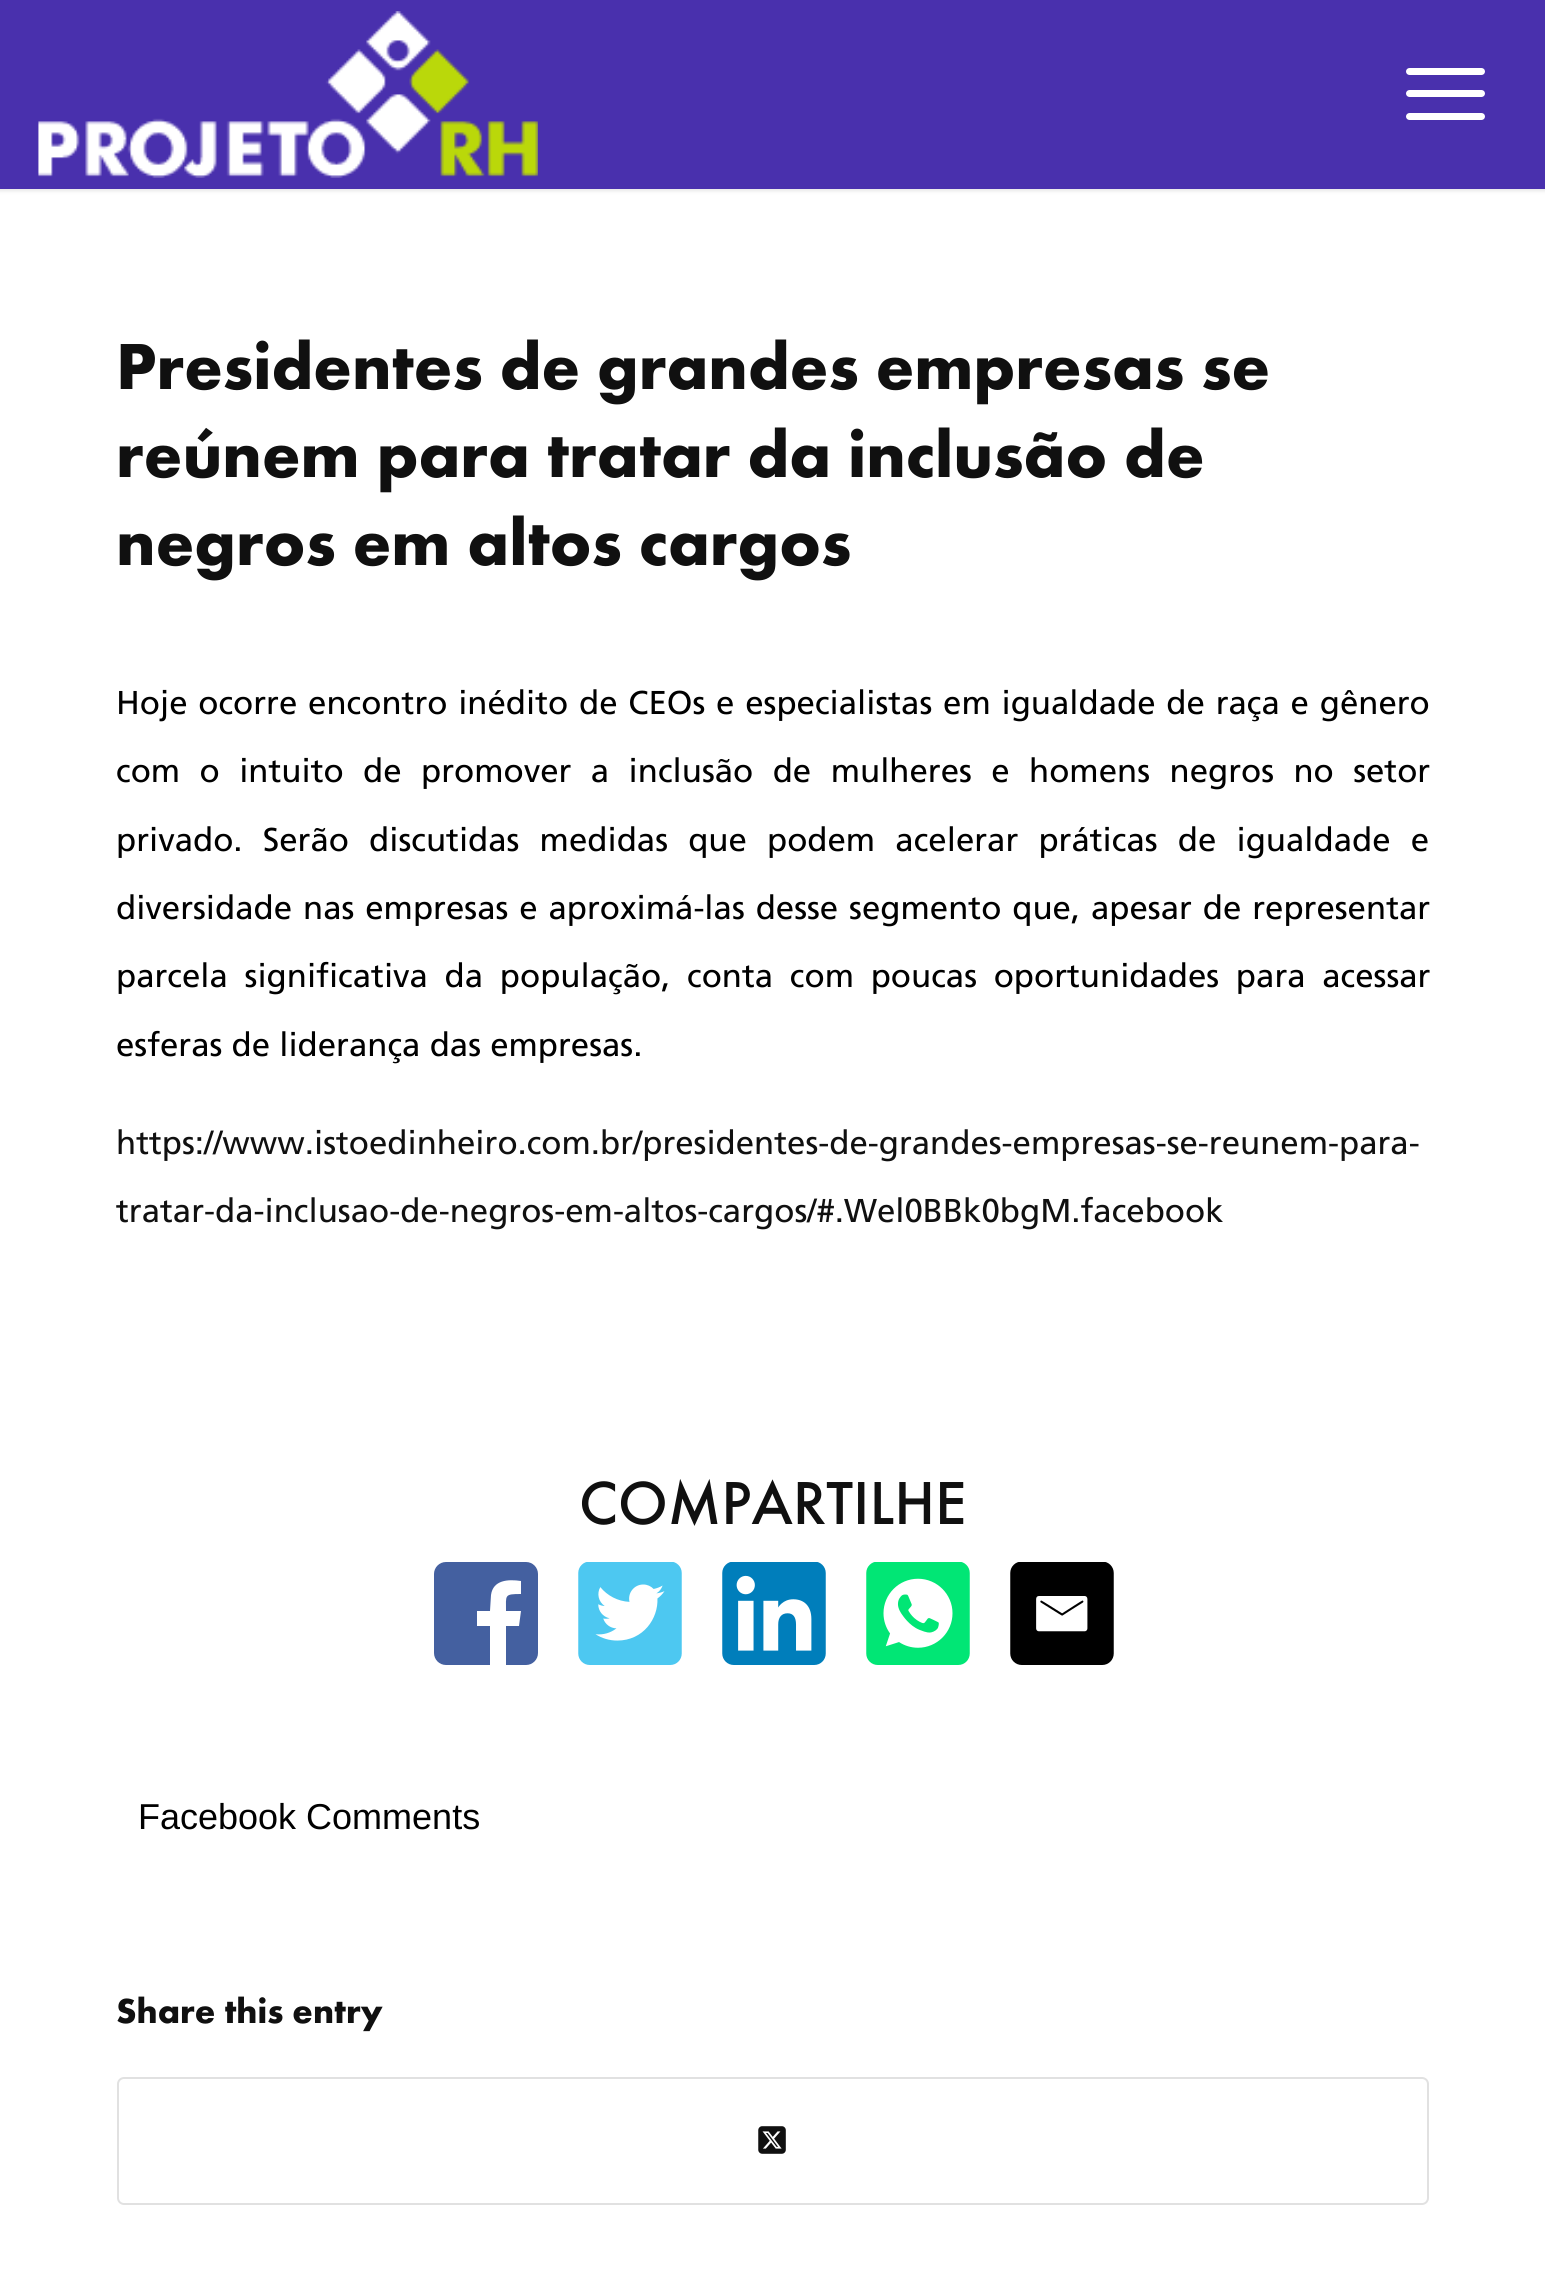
#include <cairo.h>
#include <math.h>
#include <stddef.h>


static void spaced_text(cairo_t *cr, double x, double y, const char *s, double letter, double word) {
    cairo_move_to(cr, x, y);
    while (*s) {
        char ch[5] = {0};
        int n = 0;
        do ch[n++] = *s++; while ((*s & 0xC0) == 0x80);
        cairo_show_text(cr, ch);
        cairo_rel_move_to(cr, letter + word * (*ch == ' '), 0);
    }
}

static void round_rect(cairo_t *cr, double x, double y, double w, double h, double r) {
    cairo_new_sub_path(cr);
    cairo_arc(cr, x + w - r, y + h - r, r, 0, M_PI / 2);
    cairo_arc(cr, x + r, y + h - r, r, M_PI / 2, M_PI);
    cairo_arc(cr, x + r, y + r, r, M_PI, 1.5 * M_PI);
    cairo_arc(cr, x + w - r, y + r, r, 1.5 * M_PI, 2 * M_PI);
    cairo_close_path(cr);
}

static void shadow(cairo_t *cr, double x, double y, double w, double h, double r, double blur, double alpha) {
    cairo_push_group_with_content(cr, CAIRO_CONTENT_ALPHA);
    cairo_set_operator(cr, CAIRO_OPERATOR_SOURCE);
    for (int i = 15; i >= -15 && fmin(w, h) + blur * i / 3 > 0; i -= 2) {
        double e = blur * i / 6;
        cairo_set_source_rgba(cr, 0, 0, 0, alpha * erfc((i - 1) / 8.5) / 2);
        round_rect(cr, x - e, y - e, w + 2 * e, h + 2 * e, fmax(0, fmin(r + e + blur * .6, fmin(w, h) / 2 + e)));
        cairo_fill(cr);
    }
    cairo_pattern_t *soft = cairo_pop_group(cr);
    cairo_mask(cr, soft);
    cairo_pattern_destroy(soft);
}

static void picture(cairo_t *cr, const char *path, double x, double y, double w, double h) {
    cairo_surface_t *image = cairo_image_surface_create_from_png(path);
    cairo_save(cr);
    cairo_set_source_surface(cr, image, x, y);
    cairo_rectangle(cr, x, y, w, h);
    cairo_fill(cr);
    cairo_restore(cr);
    cairo_surface_destroy(image);
}

int main(void) {
    cairo_surface_t *surface = cairo_image_surface_create(CAIRO_FORMAT_RGB24, 1545, 2293);
    cairo_t *cr = cairo_create(surface);
    cairo_font_options_t *options = cairo_font_options_create();
    cairo_font_options_set_hint_metrics(options, CAIRO_HINT_METRICS_OFF);
    cairo_font_options_set_hint_style(options, CAIRO_HINT_STYLE_NONE);
    cairo_set_font_options(cr, options);
    cairo_set_miter_limit(cr, 4);
    cairo_set_source_rgb(cr, 1, 1, 1);
    cairo_paint(cr);
    cairo_set_source_rgb(cr, 0, 0, 0);
    shadow(cr, -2, -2, 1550, 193, 0, 2, 0.1);
    cairo_set_source_rgb(cr, 0.286, 0.188, 0.678);
    cairo_rectangle(cr, 0, 0, 1545, 189);
    cairo_fill(cr);
    picture(cr, "img1.png", 38, 11, 500, 167);
    cairo_set_source_rgb(cr, 1, 1, 1);
    round_rect(cr, 1406, 90, 79, 7, 3.5);
    cairo_fill(cr);
    round_rect(cr, 1406, 68, 79, 7, 3.5);
    cairo_fill(cr);
    round_rect(cr, 1406, 113, 79, 7, 3.5);
    cairo_fill(cr);
    cairo_select_font_face(cr, "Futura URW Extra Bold", CAIRO_FONT_SLANT_NORMAL, CAIRO_FONT_WEIGHT_BOLD);
    cairo_set_font_size(cr, 67.5);
    cairo_set_source_rgb(cr, 0.063, 0.063, 0.063);
    cairo_move_to(cr, 116, 389);
    cairo_show_text(cr, "Presidentes de grandes empresas se");
    cairo_move_to(cr, 116, 477);
    cairo_show_text(cr, "reúnem para tratar da inclusão de");
    cairo_move_to(cr, 116, 565);
    cairo_show_text(cr, "negros em altos cargos");
    cairo_select_font_face(cr, "Frutiger", CAIRO_FONT_SLANT_NORMAL, CAIRO_FONT_WEIGHT_NORMAL);
    cairo_set_font_size(cr, 33);
    cairo_set_source_rgb(cr, 0, 0, 0);
    spaced_text(cr, 116, 714, "Hoje ocorre encontro inédito de CEOs e especialistas em igualdade de raça e gênero", 0, 1.6);
    spaced_text(cr, 116, 782, "com o intuito de promover a inclusão de mulheres e homens negros no setor", 0, 10.25);
    spaced_text(cr, 116, 851, "privado. Serão discutidas medidas que podem acelerar práticas de igualdade e", 0, 11);
    spaced_text(cr, 116, 919, "diversidade nas empresas e aproximá-las desse segmento que, apesar de representar", 0, 1.75);
    spaced_text(cr, 116, 987, "parcela significativa da população, conta com poucas oportunidades para acessar", 0, 7.5);
    cairo_move_to(cr, 116, 1056);
    cairo_show_text(cr, "esferas de liderança das empresas.");
    cairo_set_source_rgb(cr, 0.063, 0.063, 0.063);
    cairo_move_to(cr, 116, 1154);
    cairo_show_text(cr, "https://www.istoedinheiro.com.br/presidentes-de-grandes-empresas-se-reunem-para-");
    cairo_move_to(cr, 116, 1222);
    cairo_show_text(cr, "tratar-da-inclusao-de-negros-em-altos-cargos/#.Wel0BBk0bgM.facebook");
    cairo_select_font_face(cr, "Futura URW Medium", CAIRO_FONT_SLANT_NORMAL, CAIRO_FONT_WEIGHT_NORMAL);
    cairo_set_font_size(cr, 63);
    cairo_move_to(cr, 579, 1524);
    cairo_show_text(cr, "COMPARTILHE");
    cairo_set_source_rgb(cr, 0.267, 0.376, 0.627);
    round_rect(cr, 434, 1562, 104, 103, 12);
    cairo_fill(cr);
    cairo_set_source_rgb(cr, 1, 1, 1);
    cairo_set_fill_rule(cr, CAIRO_FILL_RULE_EVEN_ODD);
    cairo_new_path(cr);
    cairo_move_to(cr, 521, 1581);
    cairo_line_to(cr, 521, 1594);
    cairo_curve_to(cr, 504, 1594, 506, 1595, 506, 1611);
    cairo_line_to(cr, 521, 1611);
    cairo_line_to(cr, 519, 1626);
    cairo_line_to(cr, 506, 1626);
    cairo_line_to(cr, 506, 1665);
    cairo_line_to(cr, 490, 1665);
    cairo_line_to(cr, 490, 1626);
    cairo_line_to(cr, 477, 1626);
    cairo_line_to(cr, 477, 1611);
    cairo_line_to(cr, 490, 1611);
    cairo_line_to(cr, 491, 1595);
    cairo_curve_to(cr, 493, 1580, 508, 1579, 521, 1581);
    cairo_close_path(cr);
    cairo_fill(cr);
    picture(cr, "img2.png", 578, 1562, 104, 103);
    picture(cr, "img3.png", 722, 1562, 104, 103);
    picture(cr, "img4.png", 866, 1562, 104, 103);
    picture(cr, "img5.png", 1010, 1562, 104, 103);
    cairo_select_font_face(cr, "Liberation Sans", CAIRO_FONT_SLANT_NORMAL, CAIRO_FONT_WEIGHT_NORMAL);
    cairo_set_font_size(cr, 36);
    cairo_set_source_rgb(cr, 0, 0, 0);
    cairo_move_to(cr, 138, 1829);
    cairo_show_text(cr, "Facebook Comments");
    cairo_select_font_face(cr, "Futura URW Extra Bold", CAIRO_FONT_SLANT_NORMAL, CAIRO_FONT_WEIGHT_BOLD);
    cairo_set_source_rgb(cr, 0.063, 0.063, 0.063);
    cairo_move_to(cr, 116, 2023);
    cairo_show_text(cr, "Share this entry");
    round_rect(cr, 118, 2078, 1310, 126, 6);
    cairo_set_source_rgb(cr, 0.882, 0.882, 0.882);
    cairo_stroke(cr);
    picture(cr, "img6.png", 758, 2126, 28, 28);
    cairo_surface_write_to_png(surface, "page.png");
    cairo_font_options_destroy(options);
    cairo_destroy(cr);
    cairo_surface_destroy(surface);
    return 0;
}
